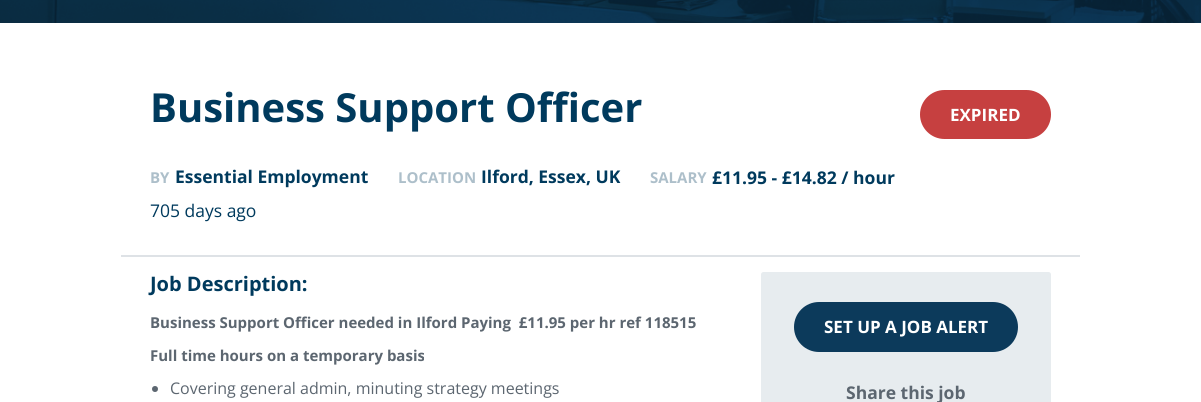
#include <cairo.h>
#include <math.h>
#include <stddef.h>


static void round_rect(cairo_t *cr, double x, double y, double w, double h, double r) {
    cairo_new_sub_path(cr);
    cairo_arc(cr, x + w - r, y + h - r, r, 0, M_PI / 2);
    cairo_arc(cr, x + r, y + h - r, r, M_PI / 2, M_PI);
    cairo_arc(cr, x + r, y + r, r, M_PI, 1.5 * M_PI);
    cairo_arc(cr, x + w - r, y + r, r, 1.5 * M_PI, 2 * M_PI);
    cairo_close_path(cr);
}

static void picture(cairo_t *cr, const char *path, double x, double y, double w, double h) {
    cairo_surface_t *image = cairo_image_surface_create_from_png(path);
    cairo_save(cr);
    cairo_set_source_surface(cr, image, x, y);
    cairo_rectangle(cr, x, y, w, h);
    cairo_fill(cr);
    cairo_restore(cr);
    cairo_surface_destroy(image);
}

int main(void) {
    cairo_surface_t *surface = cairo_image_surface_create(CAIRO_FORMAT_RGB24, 1201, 402);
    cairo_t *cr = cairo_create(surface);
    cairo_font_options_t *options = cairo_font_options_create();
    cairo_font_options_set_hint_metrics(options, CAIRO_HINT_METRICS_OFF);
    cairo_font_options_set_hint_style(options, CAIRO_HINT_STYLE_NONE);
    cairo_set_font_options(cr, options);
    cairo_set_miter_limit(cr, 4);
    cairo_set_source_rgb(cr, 1, 1, 1);
    cairo_paint(cr);
    picture(cr, "img1.png", 0, 0, 1201, 23);
    cairo_select_font_face(cr, "Open Sans", CAIRO_FONT_SLANT_NORMAL, CAIRO_FONT_WEIGHT_BOLD);
    cairo_set_font_size(cr, 40);
    cairo_set_source_rgb(cr, 0, 0.227, 0.365);
    cairo_move_to(cr, 150, 122);
    cairo_show_text(cr, "Business Support Officer");
    cairo_set_source_rgb(cr, 0.776, 0.251, 0.251);
    round_rect(cr, 920, 90, 131, 49, 24.5);
    cairo_fill(cr);
    cairo_set_font_size(cr, 17);
    cairo_set_source_rgb(cr, 1, 1, 1);
    cairo_move_to(cr, 950, 121);
    cairo_show_text(cr, "EXPIRED");
    cairo_set_source_rgb(cr, 0.871, 0.886, 0.902);
    cairo_rectangle(cr, 121, 255, 959, 2);
    cairo_fill(cr);
    cairo_set_font_size(cr, 15);
    cairo_set_source_rgb(cr, 0.678, 0.749, 0.792);
    cairo_move_to(cr, 150, 183);
    cairo_show_text(cr, "BY");
    cairo_set_font_size(cr, 17.5);
    cairo_set_source_rgb(cr, 0, 0.227, 0.365);
    cairo_move_to(cr, 175, 183);
    cairo_show_text(cr, "Essential Employment");
    cairo_set_font_size(cr, 15);
    cairo_set_source_rgb(cr, 0.678, 0.749, 0.792);
    cairo_move_to(cr, 398, 183);
    cairo_show_text(cr, "LOCATION");
    cairo_set_font_size(cr, 17.5);
    cairo_set_source_rgb(cr, 0, 0.227, 0.365);
    cairo_move_to(cr, 481, 183);
    cairo_show_text(cr, "Ilford, Essex, UK");
    cairo_set_font_size(cr, 15);
    cairo_set_source_rgb(cr, 0.678, 0.749, 0.792);
    cairo_move_to(cr, 650, 183);
    cairo_show_text(cr, "SALARY");
    cairo_set_font_size(cr, 17.5);
    cairo_set_source_rgb(cr, 0, 0.227, 0.365);
    cairo_move_to(cr, 712, 184);
    cairo_show_text(cr, "£11.95 - £14.82 / hour");
    cairo_select_font_face(cr, "Open Sans", CAIRO_FONT_SLANT_NORMAL, CAIRO_FONT_WEIGHT_NORMAL);
    cairo_move_to(cr, 150, 217);
    cairo_show_text(cr, "705 days ago");
    cairo_select_font_face(cr, "Open Sans", CAIRO_FONT_SLANT_NORMAL, CAIRO_FONT_WEIGHT_BOLD);
    cairo_set_font_size(cr, 20);
    cairo_move_to(cr, 150, 291);
    cairo_show_text(cr, "Job Description:");
    cairo_set_font_size(cr, 15);
    cairo_set_source_rgb(cr, 0.361, 0.4, 0.439);
    cairo_move_to(cr, 150, 328);
    cairo_show_text(cr, "Business Support Officer needed in Ilford Paying  £11.95 per hr ref 118515");
    cairo_move_to(cr, 150, 361);
    cairo_show_text(cr, "Full time hours on a temporary basis");
    cairo_new_path(cr);
    cairo_arc(cr, 155, 389, 3, 0, 2 * M_PI);
    cairo_fill(cr);
    cairo_select_font_face(cr, "Open Sans", CAIRO_FONT_SLANT_NORMAL, CAIRO_FONT_WEIGHT_NORMAL);
    cairo_set_font_size(cr, 16);
    cairo_move_to(cr, 170, 394);
    cairo_show_text(cr, "Covering general admin, minuting strategy meetings");
    cairo_set_source_rgb(cr, 0.906, 0.925, 0.937);
    round_rect(cr, 761, 272, 290, 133, 2.5);
    cairo_fill(cr);
    cairo_set_source_rgb(cr, 0.047, 0.227, 0.357);
    round_rect(cr, 794, 302, 224, 50, 25);
    cairo_fill(cr);
    cairo_select_font_face(cr, "Open Sans", CAIRO_FONT_SLANT_NORMAL, CAIRO_FONT_WEIGHT_BOLD);
    cairo_set_font_size(cr, 17);
    cairo_set_source_rgb(cr, 1, 1, 1);
    cairo_move_to(cr, 824, 333);
    cairo_show_text(cr, "SET UP A JOB ALERT");
    cairo_set_font_size(cr, 17.5);
    cairo_set_source_rgb(cr, 0.361, 0.4, 0.439);
    cairo_move_to(cr, 846, 399);
    cairo_show_text(cr, "Share this job");
    cairo_surface_write_to_png(surface, "page.png");
    cairo_font_options_destroy(options);
    cairo_destroy(cr);
    cairo_surface_destroy(surface);
    return 0;
}
